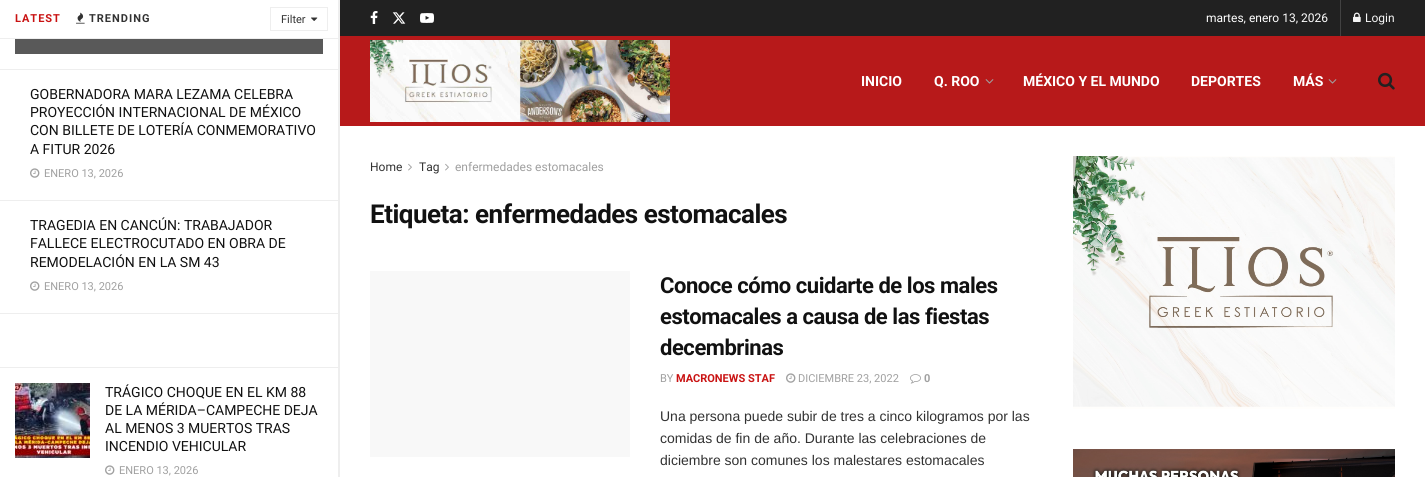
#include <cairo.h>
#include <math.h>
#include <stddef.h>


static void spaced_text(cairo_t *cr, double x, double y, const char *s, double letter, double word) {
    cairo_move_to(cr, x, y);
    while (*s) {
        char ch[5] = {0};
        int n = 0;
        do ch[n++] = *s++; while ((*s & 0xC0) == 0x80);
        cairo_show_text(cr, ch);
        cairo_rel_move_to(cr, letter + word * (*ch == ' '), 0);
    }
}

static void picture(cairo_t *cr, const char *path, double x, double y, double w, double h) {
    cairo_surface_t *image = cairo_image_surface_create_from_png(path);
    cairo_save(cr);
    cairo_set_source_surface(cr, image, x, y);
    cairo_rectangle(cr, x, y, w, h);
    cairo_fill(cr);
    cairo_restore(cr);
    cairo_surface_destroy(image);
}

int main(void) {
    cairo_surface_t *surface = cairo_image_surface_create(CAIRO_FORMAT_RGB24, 1425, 477);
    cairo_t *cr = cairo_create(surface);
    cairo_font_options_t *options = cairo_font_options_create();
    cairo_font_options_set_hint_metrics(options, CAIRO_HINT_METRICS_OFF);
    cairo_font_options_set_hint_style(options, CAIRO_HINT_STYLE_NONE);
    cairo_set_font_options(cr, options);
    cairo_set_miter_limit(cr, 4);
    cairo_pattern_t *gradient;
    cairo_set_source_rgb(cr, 1, 1, 1);
    cairo_paint(cr);
    cairo_set_source_rgb(cr, 0.933, 0.933, 0.933);
    cairo_rectangle(cr, 338, 0, 2, 477);
    cairo_fill(cr);
    cairo_rectangle(cr, 0, 38, 338, 1);
    cairo_fill(cr);
    cairo_select_font_face(cr, "Roboto", CAIRO_FONT_SLANT_NORMAL, CAIRO_FONT_WEIGHT_BOLD);
    cairo_set_font_size(cr, 11);
    cairo_set_source_rgb(cr, 0.788, 0.071, 0.071);
    spaced_text(cr, 15, 22, "LATEST", 1, 0);
    picture(cr, "img1.png", 76, 12, 9, 12);
    cairo_set_source_rgb(cr, 0.196, 0.196, 0.196);
    spaced_text(cr, 89, 22, "TRENDING", 1, 0);
    cairo_rectangle(cr, 270.5, 7.5, 57, 23);
    cairo_set_source_rgb(cr, 0.933, 0.933, 0.933);
    cairo_set_line_width(cr, 1);
    cairo_stroke(cr);
    cairo_select_font_face(cr, "Roboto", CAIRO_FONT_SLANT_NORMAL, CAIRO_FONT_WEIGHT_NORMAL);
    cairo_set_source_rgb(cr, 0.196, 0.196, 0.196);
    cairo_move_to(cr, 281, 23);
    cairo_show_text(cr, "Filter");
    picture(cr, "img2.png", 311, 17, 7, 4);
    cairo_set_source_rgb(cr, 0.933, 0.933, 0.933);
    cairo_rectangle(cr, 0, 69, 338, 1);
    cairo_fill(cr);
    gradient = cairo_pattern_create_linear(169, -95, 169, 54);
    cairo_pattern_add_color_stop_rgba(gradient, 0, 1, 1, 1, 1);
    cairo_pattern_add_color_stop_rgba(gradient, 0.7, 0.349, 0.349, 0.349, 1);
    cairo_set_source(cr, gradient);
    cairo_pattern_destroy(gradient);
    cairo_rectangle(cr, 15, 39, 308, 15);
    cairo_fill(cr);
    cairo_set_source_rgb(cr, 0.933, 0.933, 0.933);
    cairo_rectangle(cr, 0, 200, 338, 1);
    cairo_fill(cr);
    cairo_set_font_size(cr, 14);
    cairo_set_source_rgb(cr, 0.067, 0.067, 0.067);
    cairo_move_to(cr, 30, 99);
    cairo_show_text(cr, "GOBERNADORA MARA LEZAMA CELEBRA");
    cairo_move_to(cr, 30, 117);
    cairo_show_text(cr, "PROYECCIÓN INTERNACIONAL DE MÉXICO");
    cairo_move_to(cr, 30, 135);
    cairo_show_text(cr, "CON BILLETE DE LOTERÍA CONMEMORATIVO");
    cairo_move_to(cr, 30, 154);
    cairo_show_text(cr, "A FITUR 2026");
    picture(cr, "img3.png", 30, 168, 10, 10);
    cairo_set_font_size(cr, 11);
    cairo_set_source_rgb(cr, 0.627, 0.627, 0.627);
    cairo_move_to(cr, 44, 177);
    cairo_show_text(cr, "ENERO 13, 2026");
    cairo_set_source_rgb(cr, 0.933, 0.933, 0.933);
    cairo_rectangle(cr, 0, 313, 338, 1);
    cairo_fill(cr);
    cairo_set_font_size(cr, 14);
    cairo_set_source_rgb(cr, 0.067, 0.067, 0.067);
    cairo_move_to(cr, 30, 230);
    cairo_show_text(cr, "TRAGEDIA EN CANCÚN: TRABAJADOR");
    cairo_move_to(cr, 30, 248);
    cairo_show_text(cr, "FALLECE ELECTROCUTADO EN OBRA DE");
    cairo_move_to(cr, 30, 267);
    cairo_show_text(cr, "REMODELACIÓN EN LA SM 43");
    picture(cr, "img3.png", 30, 281, 10, 10);
    cairo_set_font_size(cr, 11);
    cairo_set_source_rgb(cr, 0.627, 0.627, 0.627);
    cairo_move_to(cr, 44, 290);
    cairo_show_text(cr, "ENERO 13, 2026");
    cairo_set_source_rgb(cr, 0.933, 0.933, 0.933);
    cairo_rectangle(cr, 0, 367, 338, 1);
    cairo_fill(cr);
    picture(cr, "img4.png", 15, 383, 75, 75);
    cairo_set_font_size(cr, 14);
    cairo_set_source_rgb(cr, 0.067, 0.067, 0.067);
    cairo_move_to(cr, 105, 397);
    cairo_show_text(cr, "TRÁGICO CHOQUE EN EL KM 88");
    cairo_move_to(cr, 105, 415);
    cairo_show_text(cr, "DE LA MÉRIDA–CAMPECHE DEJA");
    cairo_move_to(cr, 105, 433);
    cairo_show_text(cr, "AL MENOS 3 MUERTOS TRAS");
    cairo_move_to(cr, 105, 451);
    cairo_show_text(cr, "INCENDIO VEHICULAR");
    picture(cr, "img3.png", 105, 465, 10, 10);
    cairo_set_font_size(cr, 11);
    cairo_set_source_rgb(cr, 0.627, 0.627, 0.627);
    cairo_move_to(cr, 119, 474);
    cairo_show_text(cr, "ENERO 13, 2026");
    cairo_set_source_rgb(cr, 0.129, 0.129, 0.129);
    cairo_rectangle(cr, 340, 0, 1085, 36);
    cairo_fill(cr);
    picture(cr, "img5.png", 370, 11, 8, 13);
    picture(cr, "img6.png", 392, 12, 14, 12);
    picture(cr, "img7.png", 420, 13, 14, 10);
    cairo_set_source_rgb(cr, 0.259, 0.259, 0.259);
    cairo_rectangle(cr, 1340, 0, 1, 36);
    cairo_fill(cr);
    cairo_set_font_size(cr, 12);
    cairo_set_source_rgb(cr, 1, 1, 1);
    cairo_move_to(cr, 1206, 22);
    cairo_show_text(cr, "martes, enero 13, 2026");
    picture(cr, "img8.png", 1353, 12, 8, 10);
    cairo_set_source_rgb(cr, 0.961, 0.961, 0.961);
    cairo_move_to(cr, 1365, 22);
    cairo_show_text(cr, "Login");
    cairo_set_source_rgb(cr, 0.718, 0.098, 0.102);
    cairo_rectangle(cr, 340, 36, 1085, 90);
    cairo_fill(cr);
    picture(cr, "img9.png", 370, 40, 300, 82);
    cairo_select_font_face(cr, "Roboto", CAIRO_FONT_SLANT_NORMAL, CAIRO_FONT_WEIGHT_BOLD);
    cairo_set_font_size(cr, 14);
    cairo_set_source_rgb(cr, 1, 1, 1);
    cairo_move_to(cr, 861, 86);
    cairo_show_text(cr, "INICIO");
    cairo_move_to(cr, 934, 86);
    cairo_show_text(cr, "Q. ROO");
    picture(cr, "img10.png", 985, 79, 9, 5);
    cairo_move_to(cr, 1023, 86);
    cairo_show_text(cr, "MÉXICO Y EL MUNDO");
    cairo_move_to(cr, 1191, 86);
    cairo_show_text(cr, "DEPORTES");
    cairo_move_to(cr, 1293, 86);
    cairo_show_text(cr, "MÁS");
    picture(cr, "img10.png", 1328, 79, 9, 5);
    picture(cr, "img11.png", 1378, 72, 17, 18);
    cairo_select_font_face(cr, "Roboto", CAIRO_FONT_SLANT_NORMAL, CAIRO_FONT_WEIGHT_NORMAL);
    cairo_set_font_size(cr, 12);
    cairo_set_source_rgb(cr, 0.196, 0.196, 0.196);
    cairo_move_to(cr, 370, 171);
    cairo_show_text(cr, "Home");
    picture(cr, "img12.png", 408, 163, 4, 8);
    cairo_move_to(cr, 419, 171);
    cairo_show_text(cr, "Tag");
    picture(cr, "img12.png", 445, 163, 4, 8);
    cairo_set_source_rgb(cr, 0.627, 0.627, 0.627);
    cairo_move_to(cr, 455, 171);
    cairo_show_text(cr, "enfermedades estomacales");
    cairo_select_font_face(cr, "Roboto", CAIRO_FONT_SLANT_NORMAL, CAIRO_FONT_WEIGHT_BOLD);
    cairo_set_font_size(cr, 26);
    cairo_set_source_rgb(cr, 0.067, 0.067, 0.067);
    spaced_text(cr, 370, 223, "Etiqueta: enfermedades estomacales", -0.5, 0);
    cairo_set_source_rgb(cr, 0.969, 0.969, 0.969);
    cairo_rectangle(cr, 370, 271, 260, 186);
    cairo_fill(cr);
    cairo_set_font_size(cr, 22);
    cairo_set_source_rgb(cr, 0.067, 0.067, 0.067);
    spaced_text(cr, 660, 293, "Conoce cómo cuidarte de los males", -0.45, 0);
    spaced_text(cr, 660, 324, "estomacales a causa de las fiestas", -0.45, 0);
    spaced_text(cr, 660, 355, "decembrinas", -0.45, 0);
    cairo_select_font_face(cr, "Roboto", CAIRO_FONT_SLANT_NORMAL, CAIRO_FONT_WEIGHT_NORMAL);
    cairo_set_font_size(cr, 11);
    cairo_set_source_rgb(cr, 0.627, 0.627, 0.627);
    cairo_move_to(cr, 660, 382);
    cairo_show_text(cr, "BY");
    cairo_select_font_face(cr, "Roboto", CAIRO_FONT_SLANT_NORMAL, CAIRO_FONT_WEIGHT_BOLD);
    cairo_set_source_rgb(cr, 0.788, 0.071, 0.071);
    cairo_move_to(cr, 676, 382);
    cairo_show_text(cr, "MACRONEWS STAF");
    picture(cr, "img3.png", 786, 373, 10, 10);
    cairo_select_font_face(cr, "Roboto", CAIRO_FONT_SLANT_NORMAL, CAIRO_FONT_WEIGHT_NORMAL);
    cairo_set_source_rgb(cr, 0.627, 0.627, 0.627);
    cairo_move_to(cr, 798, 382);
    cairo_show_text(cr, "DICIEMBRE 23, 2022");
    picture(cr, "img13.png", 910, 374, 11, 10);
    cairo_select_font_face(cr, "Roboto", CAIRO_FONT_SLANT_NORMAL, CAIRO_FONT_WEIGHT_BOLD);
    cairo_move_to(cr, 924, 382);
    cairo_show_text(cr, "0");
    cairo_select_font_face(cr, "Liberation Sans", CAIRO_FONT_SLANT_NORMAL, CAIRO_FONT_WEIGHT_NORMAL);
    cairo_set_font_size(cr, 14);
    cairo_set_source_rgb(cr, 0.196, 0.196, 0.196);
    cairo_move_to(cr, 660, 421);
    cairo_show_text(cr, "Una persona puede subir de tres a cinco kilogramos por las");
    cairo_move_to(cr, 660, 443);
    cairo_show_text(cr, "comidas de fin de año. Durante las celebraciones de");
    cairo_move_to(cr, 660, 465);
    cairo_show_text(cr, "diciembre son comunes los malestares estomacales");
    picture(cr, "img14.png", 1073, 156, 322, 253);
    picture(cr, "img15.png", 1073, 449, 322, 28);
    cairo_surface_write_to_png(surface, "page.png");
    cairo_font_options_destroy(options);
    cairo_destroy(cr);
    cairo_surface_destroy(surface);
    return 0;
}
